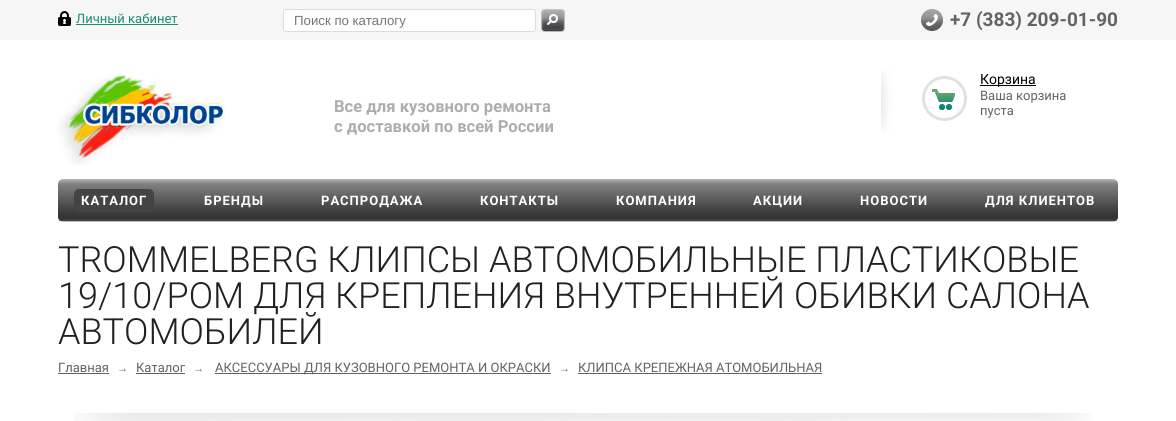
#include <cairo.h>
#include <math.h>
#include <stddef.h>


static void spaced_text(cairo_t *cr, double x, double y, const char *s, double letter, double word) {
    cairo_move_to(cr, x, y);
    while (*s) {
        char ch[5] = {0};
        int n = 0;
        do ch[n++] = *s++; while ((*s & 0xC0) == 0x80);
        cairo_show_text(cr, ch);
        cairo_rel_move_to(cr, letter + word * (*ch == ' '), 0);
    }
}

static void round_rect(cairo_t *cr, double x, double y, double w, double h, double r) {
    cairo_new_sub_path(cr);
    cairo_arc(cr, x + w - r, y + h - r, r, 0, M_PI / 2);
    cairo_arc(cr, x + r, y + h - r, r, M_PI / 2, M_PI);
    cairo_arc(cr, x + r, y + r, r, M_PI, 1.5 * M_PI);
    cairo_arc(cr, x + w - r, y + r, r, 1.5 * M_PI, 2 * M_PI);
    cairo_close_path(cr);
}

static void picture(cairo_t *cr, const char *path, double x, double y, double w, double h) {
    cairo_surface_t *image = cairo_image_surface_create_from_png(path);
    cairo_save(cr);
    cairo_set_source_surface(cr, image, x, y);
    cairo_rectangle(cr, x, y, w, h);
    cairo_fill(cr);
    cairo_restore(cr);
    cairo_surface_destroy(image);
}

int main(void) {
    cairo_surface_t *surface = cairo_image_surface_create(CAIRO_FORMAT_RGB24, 1176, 421);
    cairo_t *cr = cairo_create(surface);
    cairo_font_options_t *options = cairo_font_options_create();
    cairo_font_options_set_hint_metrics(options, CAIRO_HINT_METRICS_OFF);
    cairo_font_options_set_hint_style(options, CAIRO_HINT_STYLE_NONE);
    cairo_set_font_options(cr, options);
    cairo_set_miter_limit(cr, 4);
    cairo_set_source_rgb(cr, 1, 1, 1);
    cairo_paint(cr);
    cairo_set_source_rgb(cr, 0.961, 0.961, 0.961);
    cairo_rectangle(cr, 0, 0, 1176, 40);
    cairo_fill(cr);
    picture(cr, "img1.png", 58, 11, 13, 15);
    cairo_select_font_face(cr, "Roboto", CAIRO_FONT_SLANT_NORMAL, CAIRO_FONT_WEIGHT_NORMAL);
    cairo_set_font_size(cr, 13);
    cairo_set_source_rgb(cr, 0.094, 0.545, 0.467);
    cairo_move_to(cr, 76, 23);
    cairo_show_text(cr, "Личный кабинет");
    cairo_rectangle(cr, 76, 24, 102, 1);
    cairo_fill(cr);
    cairo_set_source_rgb(cr, 1, 1, 1);
    round_rect(cr, 283.5, 9.5, 252, 22, 2.5);
    cairo_fill_preserve(cr);
    cairo_set_source_rgb(cr, 0.863, 0.863, 0.863);
    cairo_set_line_width(cr, 1);
    cairo_stroke(cr);
    cairo_select_font_face(cr, "Liberation Sans", CAIRO_FONT_SLANT_NORMAL, CAIRO_FONT_WEIGHT_NORMAL);
    cairo_set_font_size(cr, 13.25);
    cairo_set_source_rgb(cr, 0.459, 0.459, 0.459);
    cairo_move_to(cr, 294, 25);
    cairo_show_text(cr, "Поиск по каталогу");
    picture(cr, "img2.png", 541, 9, 24, 23);
    picture(cr, "img3.png", 921, 9, 22, 22);
    cairo_select_font_face(cr, "Roboto", CAIRO_FONT_SLANT_NORMAL, CAIRO_FONT_WEIGHT_BOLD);
    cairo_set_font_size(cr, 19);
    cairo_set_source_rgb(cr, 0.388, 0.388, 0.388);
    cairo_move_to(cr, 950, 26);
    cairo_show_text(cr, "+7 (383) 209-01-90");
    picture(cr, "img4.png", 58, 73, 167, 92);
    cairo_set_font_size(cr, 16.6);
    cairo_set_source_rgb(cr, 0.678, 0.678, 0.678);
    cairo_move_to(cr, 334, 112);
    cairo_show_text(cr, "Все для кузовного ремонта");
    cairo_move_to(cr, 334, 132);
    cairo_show_text(cr, "с доставкой по всей России");
    picture(cr, "img5.png", 881, 69, 86, 63);
    cairo_set_source_rgb(cr, 0, 0, 0);
    cairo_rectangle(cr, 980, 85, 56, 1);
    cairo_fill(cr);
    cairo_select_font_face(cr, "Roboto", CAIRO_FONT_SLANT_NORMAL, CAIRO_FONT_WEIGHT_NORMAL);
    cairo_set_font_size(cr, 14);
    cairo_move_to(cr, 980, 84);
    cairo_show_text(cr, "Корзина");
    cairo_set_font_size(cr, 13);
    cairo_set_source_rgb(cr, 0.388, 0.388, 0.388);
    cairo_move_to(cr, 980, 100);
    cairo_show_text(cr, "Ваша корзина");
    cairo_move_to(cr, 980, 115);
    cairo_show_text(cr, "пуста");
    picture(cr, "img6.png", 58, 179, 1060, 43);
    cairo_set_source_rgb(cr, 0.267, 0.267, 0.267);
    round_rect(cr, 74, 189, 80, 23, 5);
    cairo_fill(cr);
    cairo_select_font_face(cr, "Roboto", CAIRO_FONT_SLANT_NORMAL, CAIRO_FONT_WEIGHT_BOLD);
    cairo_set_source_rgb(cr, 1, 1, 1);
    spaced_text(cr, 81, 205, "КАТАЛОГ", 1, 0);
    spaced_text(cr, 204, 205, "БРЕНДЫ", 1, 0);
    spaced_text(cr, 321, 205, "РАСПРОДАЖА", 1, 0);
    spaced_text(cr, 480, 205, "КОНТАКТЫ", 1, 0);
    spaced_text(cr, 616, 205, "КОМПАНИЯ", 1, 0);
    spaced_text(cr, 753, 205, "АКЦИИ", 1, 0);
    spaced_text(cr, 860, 205, "НОВОСТИ", 1, 0);
    spaced_text(cr, 985, 205, "ДЛЯ КЛИЕНТОВ", 1, 0);
    cairo_select_font_face(cr, "Roboto Light", CAIRO_FONT_SLANT_NORMAL, CAIRO_FONT_WEIGHT_NORMAL);
    cairo_set_font_size(cr, 36);
    cairo_set_source_rgb(cr, 0.129, 0.129, 0.129);
    cairo_move_to(cr, 58, 272);
    cairo_show_text(cr, "TROMMELBERG КЛИПСЫ АВТОМОБИЛЬНЫЕ ПЛАСТИКОВЫЕ");
    cairo_move_to(cr, 58, 308);
    cairo_show_text(cr, "19/10/POM ДЛЯ КРЕПЛЕНИЯ ВНУТРЕННЕЙ ОБИВКИ САЛОНА");
    cairo_move_to(cr, 58, 344);
    cairo_show_text(cr, "АВТОМОБИЛЕЙ");
    cairo_select_font_face(cr, "Roboto", CAIRO_FONT_SLANT_NORMAL, CAIRO_FONT_WEIGHT_NORMAL);
    cairo_set_font_size(cr, 13);
    cairo_set_source_rgb(cr, 0.388, 0.388, 0.388);
    cairo_move_to(cr, 58, 372);
    cairo_show_text(cr, "Главная");
    cairo_rectangle(cr, 58, 373, 51, 1);
    cairo_fill(cr);
    cairo_select_font_face(cr, "Liberation Sans", CAIRO_FONT_SLANT_NORMAL, CAIRO_FONT_WEIGHT_NORMAL);
    cairo_set_font_size(cr, 11);
    cairo_move_to(cr, 117, 372);
    cairo_show_text(cr, "→");
    cairo_select_font_face(cr, "Roboto", CAIRO_FONT_SLANT_NORMAL, CAIRO_FONT_WEIGHT_NORMAL);
    cairo_set_font_size(cr, 13);
    cairo_move_to(cr, 136, 372);
    cairo_show_text(cr, "Каталог");
    cairo_rectangle(cr, 136, 373, 49, 1);
    cairo_fill(cr);
    cairo_select_font_face(cr, "Liberation Sans", CAIRO_FONT_SLANT_NORMAL, CAIRO_FONT_WEIGHT_NORMAL);
    cairo_set_font_size(cr, 11);
    cairo_move_to(cr, 193, 372);
    cairo_show_text(cr, "→");
    cairo_rectangle(cr, 215, 373, 336, 1);
    cairo_fill(cr);
    cairo_select_font_face(cr, "Roboto", CAIRO_FONT_SLANT_NORMAL, CAIRO_FONT_WEIGHT_NORMAL);
    cairo_set_font_size(cr, 13);
    cairo_move_to(cr, 215, 372);
    cairo_show_text(cr, "АКСЕССУАРЫ ДЛЯ КУЗОВНОГО РЕМОНТА И ОКРАСКИ");
    cairo_select_font_face(cr, "Liberation Sans", CAIRO_FONT_SLANT_NORMAL, CAIRO_FONT_WEIGHT_NORMAL);
    cairo_set_font_size(cr, 11);
    cairo_move_to(cr, 559, 372);
    cairo_show_text(cr, "→");
    cairo_select_font_face(cr, "Roboto", CAIRO_FONT_SLANT_NORMAL, CAIRO_FONT_WEIGHT_NORMAL);
    cairo_set_font_size(cr, 13);
    cairo_move_to(cr, 578, 372);
    cairo_show_text(cr, "КЛИПСА КРЕПЕЖНАЯ АТОМОБИЛЬНАЯ");
    cairo_rectangle(cr, 578, 373, 244, 1);
    cairo_fill(cr);
    picture(cr, "img7.png", 74, 413, 1018, 8);
    cairo_surface_write_to_png(surface, "page.png");
    cairo_font_options_destroy(options);
    cairo_destroy(cr);
    cairo_surface_destroy(surface);
    return 0;
}
